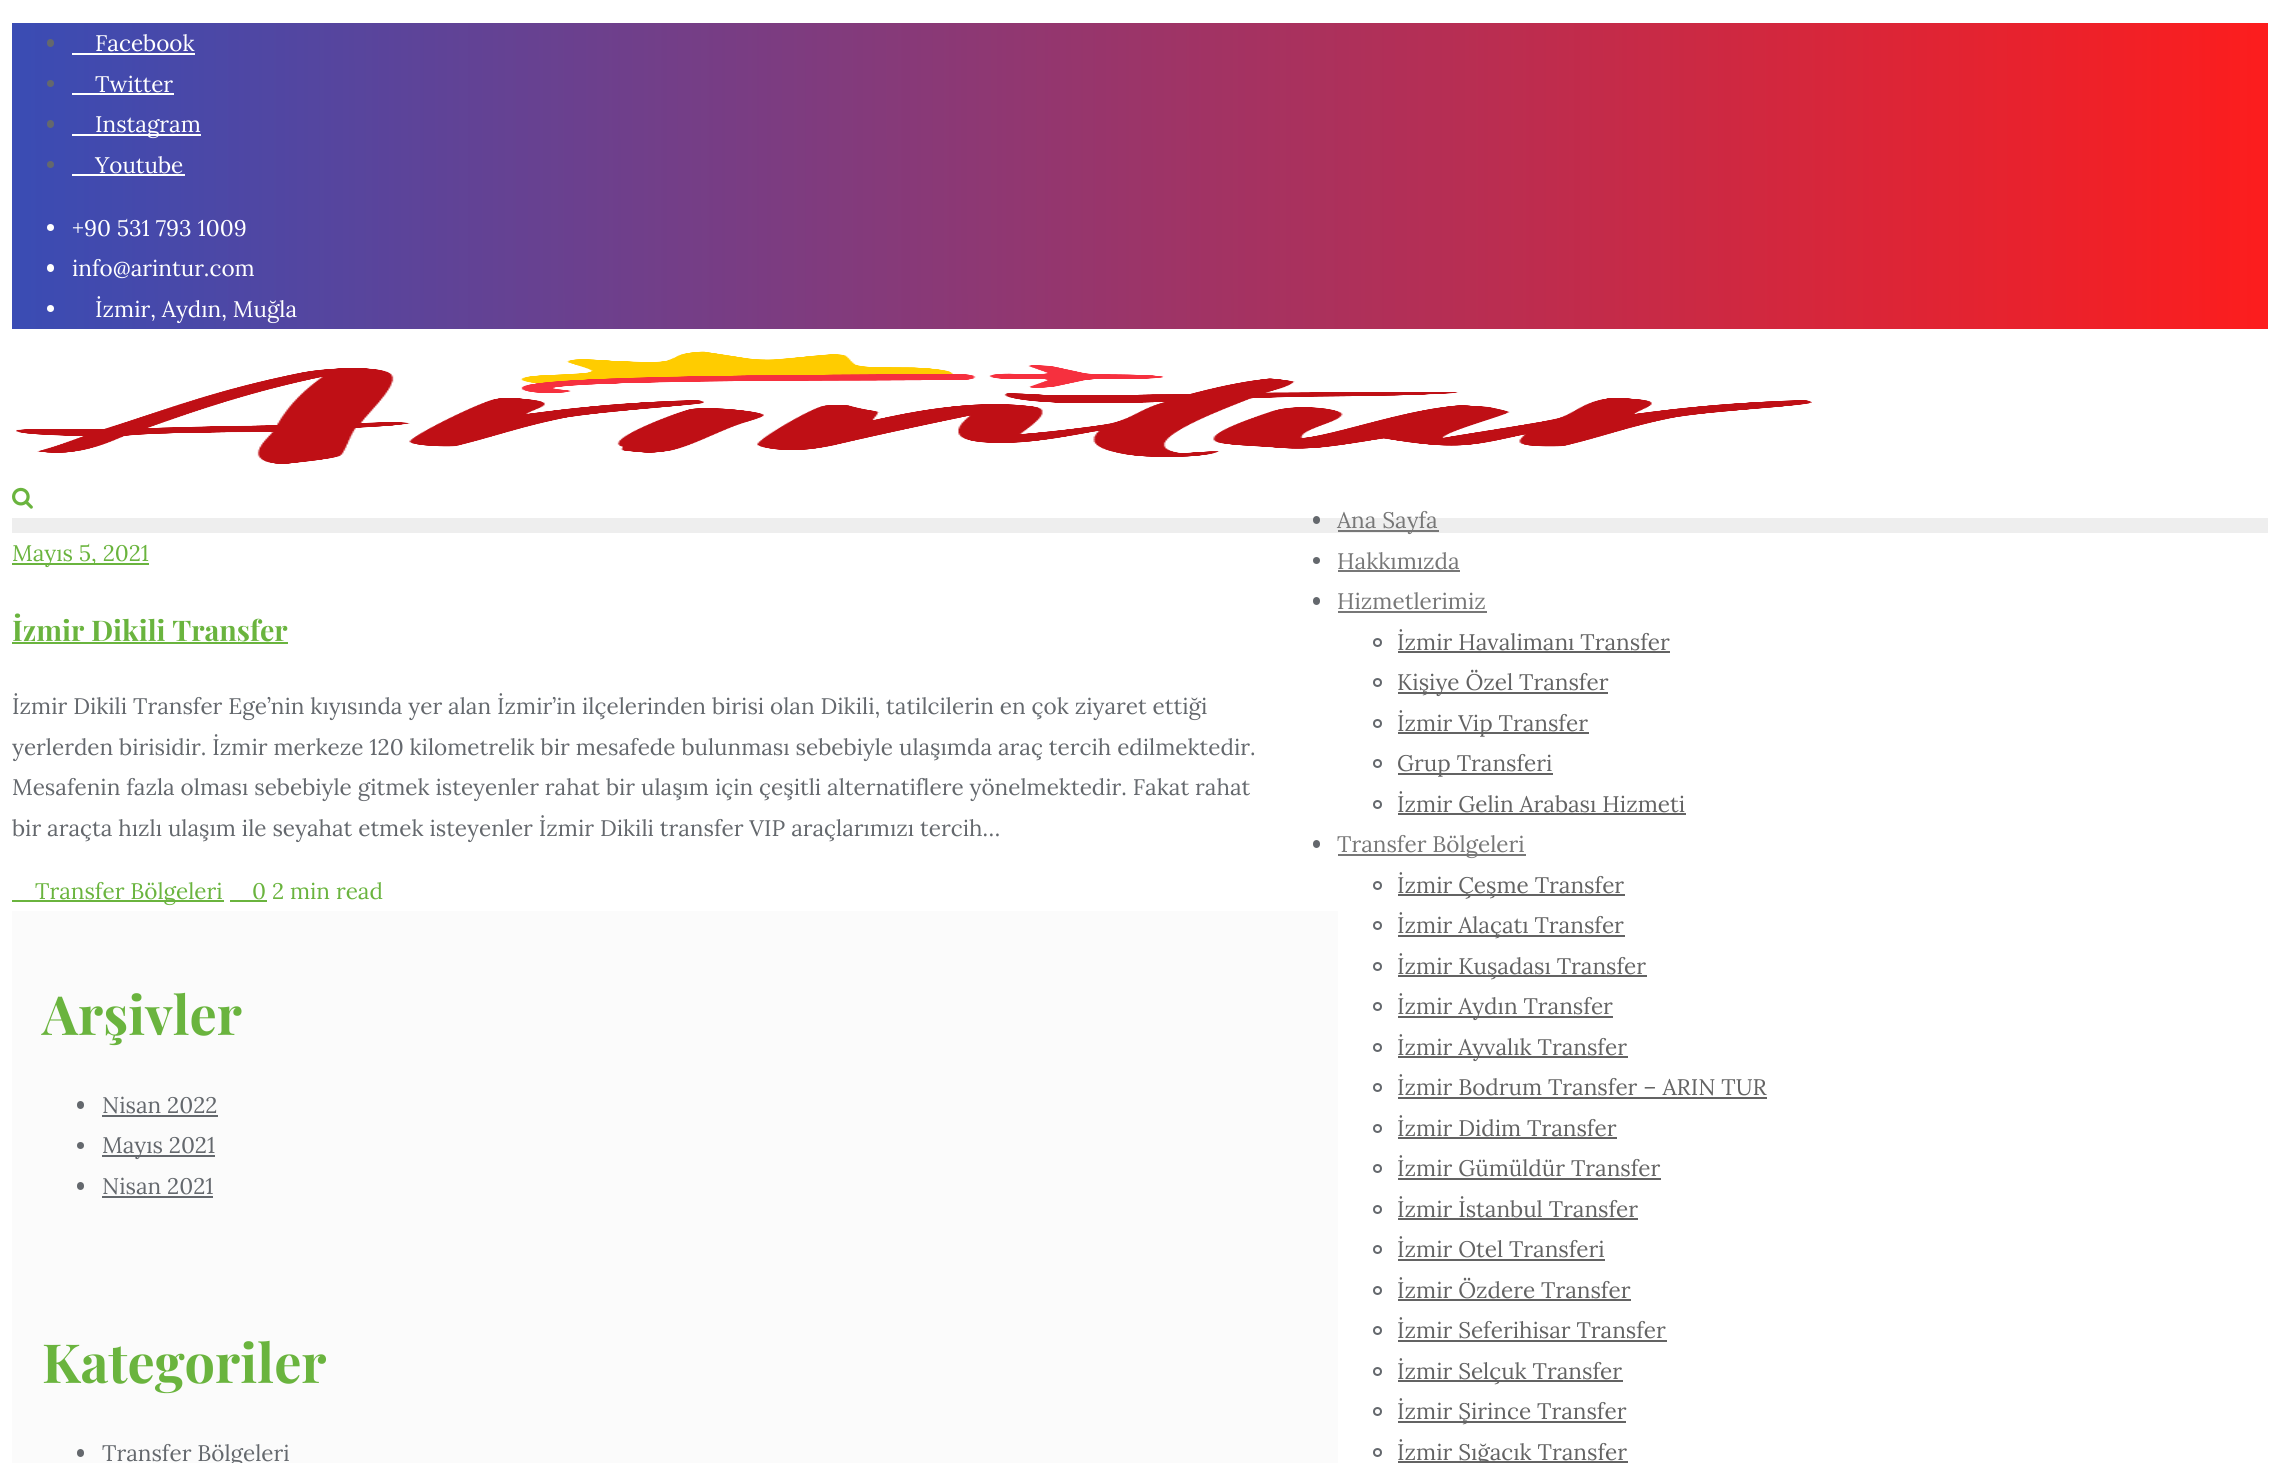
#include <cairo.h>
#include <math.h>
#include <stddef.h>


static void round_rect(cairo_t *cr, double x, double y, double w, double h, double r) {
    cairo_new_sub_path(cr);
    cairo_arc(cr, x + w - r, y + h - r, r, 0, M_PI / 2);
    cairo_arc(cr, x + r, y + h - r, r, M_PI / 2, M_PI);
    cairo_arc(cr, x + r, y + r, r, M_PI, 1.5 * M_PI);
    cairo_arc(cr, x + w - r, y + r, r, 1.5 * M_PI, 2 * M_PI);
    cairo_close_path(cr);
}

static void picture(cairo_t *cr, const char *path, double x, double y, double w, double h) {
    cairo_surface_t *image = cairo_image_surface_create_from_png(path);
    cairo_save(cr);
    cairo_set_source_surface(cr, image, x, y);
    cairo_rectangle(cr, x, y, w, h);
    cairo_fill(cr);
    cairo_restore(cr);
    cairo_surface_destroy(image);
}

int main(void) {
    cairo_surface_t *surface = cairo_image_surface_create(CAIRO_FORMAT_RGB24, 2279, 1463);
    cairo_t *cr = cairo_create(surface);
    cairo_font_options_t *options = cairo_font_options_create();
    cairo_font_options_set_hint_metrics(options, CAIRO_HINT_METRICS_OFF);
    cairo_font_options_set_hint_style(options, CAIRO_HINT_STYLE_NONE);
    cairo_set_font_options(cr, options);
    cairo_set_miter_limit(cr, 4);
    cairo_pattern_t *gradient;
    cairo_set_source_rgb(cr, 1, 1, 1);
    cairo_paint(cr);
    cairo_set_source_rgb(cr, 0.933, 0.933, 0.933);
    cairo_rectangle(cr, 12, 518, 2256, 15);
    cairo_fill(cr);
    gradient = cairo_pattern_create_linear(12, 176, 2268, 175);
    cairo_pattern_add_color_stop_rgba(gradient, 0, 0.227, 0.298, 0.706, 1);
    cairo_pattern_add_color_stop_rgba(gradient, 1, 0.992, 0.114, 0.114, 1);
    cairo_set_source(cr, gradient);
    cairo_pattern_destroy(gradient);
    cairo_rectangle(cr, 12, 23, 2256, 306);
    cairo_fill(cr);
    cairo_set_source_rgb(cr, 0.392, 0.408, 0.427);
    round_rect(cr, 47, 39, 7, 8, 3.5);
    cairo_fill(cr);
    cairo_select_font_face(cr, "Lora", CAIRO_FONT_SLANT_NORMAL, CAIRO_FONT_WEIGHT_NORMAL);
    cairo_set_font_size(cr, 22.5);
    cairo_set_source_rgb(cr, 1, 1, 1);
    cairo_move_to(cr, 95, 51);
    cairo_show_text(cr, "Facebook");
    cairo_rectangle(cr, 72, 53, 123, 2);
    cairo_fill(cr);
    cairo_set_source_rgb(cr, 0.392, 0.408, 0.427);
    cairo_arc(cr, 50.5, 83.5, 3.5, 0, 2 * M_PI);
    cairo_fill(cr);
    cairo_set_source_rgb(cr, 1, 1, 1);
    cairo_move_to(cr, 95, 92);
    cairo_show_text(cr, "Twitter");
    cairo_rectangle(cr, 72, 93, 102, 2);
    cairo_fill(cr);
    cairo_set_source_rgb(cr, 0.392, 0.408, 0.427);
    round_rect(cr, 47, 120, 7, 8, 3.5);
    cairo_fill(cr);
    cairo_set_source_rgb(cr, 1, 1, 1);
    cairo_rectangle(cr, 72, 134, 129, 2);
    cairo_fill(cr);
    cairo_move_to(cr, 95, 132);
    cairo_show_text(cr, "Instagram");
    cairo_set_source_rgb(cr, 0.392, 0.408, 0.427);
    cairo_new_path(cr);
    cairo_arc(cr, 50.5, 164.5, 3.5, 0, 2 * M_PI);
    cairo_fill(cr);
    cairo_set_source_rgb(cr, 1, 1, 1);
    cairo_move_to(cr, 95, 173);
    cairo_show_text(cr, "Youtube");
    cairo_rectangle(cr, 72, 174, 113, 2);
    cairo_fill(cr);
    cairo_arc(cr, 50.5, 227.5, 3.5, 0, 2 * M_PI);
    cairo_fill(cr);
    cairo_move_to(cr, 72, 236);
    cairo_show_text(cr, "+90 531 793 1009");
    round_rect(cr, 47, 264, 7, 8, 3.5);
    cairo_fill(cr);
    cairo_move_to(cr, 72, 276);
    cairo_show_text(cr, "info@arintur.com");
    cairo_new_path(cr);
    cairo_arc(cr, 50.5, 308.5, 3.5, 0, 2 * M_PI);
    cairo_fill(cr);
    cairo_move_to(cr, 95, 317);
    cairo_show_text(cr, "İzmir, Aydın, Muğla");
    picture(cr, "img1.png", 16, 351, 1796, 113);
    picture(cr, "img2.png", 12, 487, 21, 22);
    cairo_set_source_rgb(cr, 0.392, 0.408, 0.427);
    round_rect(cr, 1313, 516, 7, 8, 3.5);
    cairo_fill(cr);
    cairo_set_source_rgb(cr, 0.467, 0.467, 0.467);
    cairo_rectangle(cr, 1338, 530, 101, 2);
    cairo_fill(cr);
    cairo_move_to(cr, 1337, 528);
    cairo_show_text(cr, "Ana Sayfa");
    cairo_set_source_rgb(cr, 0.392, 0.408, 0.427);
    cairo_new_path(cr);
    cairo_arc(cr, 1316.5, 560.5, 3.5, 0, 2 * M_PI);
    cairo_fill(cr);
    cairo_set_source_rgb(cr, 0.467, 0.467, 0.467);
    cairo_move_to(cr, 1337, 569);
    cairo_show_text(cr, "Hakkımızda");
    cairo_rectangle(cr, 1338, 570, 122, 2);
    cairo_fill(cr);
    cairo_set_source_rgb(cr, 0.392, 0.408, 0.427);
    round_rect(cr, 1313, 597, 7, 8, 3.5);
    cairo_fill(cr);
    cairo_set_source_rgb(cr, 0.467, 0.467, 0.467);
    cairo_move_to(cr, 1337, 609);
    cairo_show_text(cr, "Hizmetlerimiz");
    cairo_rectangle(cr, 1338, 611, 149, 2);
    cairo_fill(cr);
    cairo_arc(cr, 1377.5, 642.5, 3.5, 0, 2 * M_PI);
    cairo_set_source_rgb(cr, 0.392, 0.408, 0.427);
    cairo_stroke(cr);
    cairo_set_source_rgb(cr, 0.388, 0.388, 0.388);
    cairo_move_to(cr, 1397, 650);
    cairo_show_text(cr, "İzmir Havalimanı Transfer");
    cairo_rectangle(cr, 1398, 651, 272, 2);
    cairo_fill(cr);
    cairo_arc(cr, 1377.5, 682.5, 3.5, 0, 2 * M_PI);
    cairo_set_source_rgb(cr, 0.392, 0.408, 0.427);
    cairo_stroke(cr);
    cairo_set_source_rgb(cr, 0.388, 0.388, 0.388);
    cairo_rectangle(cr, 1398, 692, 210, 2);
    cairo_fill(cr);
    cairo_move_to(cr, 1397, 690);
    cairo_show_text(cr, "Kişiye Özel Transfer");
    cairo_new_path(cr);
    cairo_arc(cr, 1377.5, 723.5, 3.5, 0, 2 * M_PI);
    cairo_set_source_rgb(cr, 0.392, 0.408, 0.427);
    cairo_stroke(cr);
    cairo_set_source_rgb(cr, 0.388, 0.388, 0.388);
    cairo_rectangle(cr, 1398, 732, 191, 2);
    cairo_fill(cr);
    cairo_move_to(cr, 1397, 731);
    cairo_show_text(cr, "İzmir Vip Transfer");
    cairo_new_path(cr);
    cairo_arc(cr, 1377.5, 763.5, 3.5, 0, 2 * M_PI);
    cairo_set_source_rgb(cr, 0.392, 0.408, 0.427);
    cairo_stroke(cr);
    cairo_set_source_rgb(cr, 0.388, 0.388, 0.388);
    cairo_rectangle(cr, 1398, 773, 155, 2);
    cairo_fill(cr);
    cairo_move_to(cr, 1397, 771);
    cairo_show_text(cr, "Grup Transferi");
    cairo_new_path(cr);
    cairo_arc(cr, 1377.5, 804.5, 3.5, 0, 2 * M_PI);
    cairo_set_source_rgb(cr, 0.392, 0.408, 0.427);
    cairo_stroke(cr);
    cairo_set_source_rgb(cr, 0.388, 0.388, 0.388);
    cairo_move_to(cr, 1397, 812);
    cairo_show_text(cr, "İzmir Gelin Arabası Hizmeti");
    cairo_rectangle(cr, 1398, 813, 288, 2);
    cairo_fill(cr);
    cairo_set_source_rgb(cr, 0.392, 0.408, 0.427);
    round_rect(cr, 1313, 840, 7, 8, 3.5);
    cairo_fill(cr);
    cairo_set_source_rgb(cr, 0.467, 0.467, 0.467);
    cairo_rectangle(cr, 1338, 854, 188, 2);
    cairo_fill(cr);
    cairo_move_to(cr, 1337, 852);
    cairo_show_text(cr, "Transfer Bölgeleri");
    cairo_new_path(cr);
    cairo_arc(cr, 1377.5, 885.5, 3.5, 0, 2 * M_PI);
    cairo_set_source_rgb(cr, 0.392, 0.408, 0.427);
    cairo_stroke(cr);
    cairo_set_source_rgb(cr, 0.388, 0.388, 0.388);
    cairo_rectangle(cr, 1398, 894, 227, 2);
    cairo_fill(cr);
    cairo_move_to(cr, 1397, 893);
    cairo_show_text(cr, "İzmir Çeşme Transfer");
    cairo_new_path(cr);
    cairo_arc(cr, 1377.5, 925.5, 3.5, 0, 2 * M_PI);
    cairo_set_source_rgb(cr, 0.392, 0.408, 0.427);
    cairo_stroke(cr);
    cairo_set_source_rgb(cr, 0.388, 0.388, 0.388);
    cairo_rectangle(cr, 1398, 935, 227, 2);
    cairo_fill(cr);
    cairo_move_to(cr, 1397, 933);
    cairo_show_text(cr, "İzmir Alaçatı Transfer");
    cairo_new_path(cr);
    cairo_arc(cr, 1377.5, 966.5, 3.5, 0, 2 * M_PI);
    cairo_set_source_rgb(cr, 0.392, 0.408, 0.427);
    cairo_stroke(cr);
    cairo_set_source_rgb(cr, 0.388, 0.388, 0.388);
    cairo_rectangle(cr, 1398, 975, 249, 2);
    cairo_fill(cr);
    cairo_move_to(cr, 1397, 974);
    cairo_show_text(cr, "İzmir Kuşadası Transfer");
    cairo_new_path(cr);
    cairo_arc(cr, 1377.5, 1006.5, 3.5, 0, 2 * M_PI);
    cairo_set_source_rgb(cr, 0.392, 0.408, 0.427);
    cairo_stroke(cr);
    cairo_set_source_rgb(cr, 0.388, 0.388, 0.388);
    cairo_rectangle(cr, 1398, 1016, 215, 2);
    cairo_fill(cr);
    cairo_move_to(cr, 1397, 1014);
    cairo_show_text(cr, "İzmir Aydın Transfer");
    cairo_new_path(cr);
    cairo_arc(cr, 1377.5, 1047.5, 3.5, 0, 2 * M_PI);
    cairo_set_source_rgb(cr, 0.392, 0.408, 0.427);
    cairo_stroke(cr);
    cairo_set_source_rgb(cr, 0.388, 0.388, 0.388);
    cairo_rectangle(cr, 1398, 1056, 230, 2);
    cairo_fill(cr);
    cairo_move_to(cr, 1397, 1055);
    cairo_show_text(cr, "İzmir Ayvalık Transfer");
    cairo_new_path(cr);
    cairo_arc(cr, 1377.5, 1087.5, 3.5, 0, 2 * M_PI);
    cairo_set_source_rgb(cr, 0.392, 0.408, 0.427);
    cairo_stroke(cr);
    cairo_set_source_rgb(cr, 0.388, 0.388, 0.388);
    cairo_move_to(cr, 1397, 1095);
    cairo_show_text(cr, "İzmir Bodrum Transfer – ARIN TUR");
    cairo_rectangle(cr, 1398, 1097, 369, 2);
    cairo_fill(cr);
    cairo_arc(cr, 1377.5, 1128.5, 3.5, 0, 2 * M_PI);
    cairo_set_source_rgb(cr, 0.392, 0.408, 0.427);
    cairo_stroke(cr);
    cairo_set_source_rgb(cr, 0.388, 0.388, 0.388);
    cairo_move_to(cr, 1397, 1136);
    cairo_show_text(cr, "İzmir Didim Transfer");
    cairo_rectangle(cr, 1398, 1137, 219, 2);
    cairo_fill(cr);
    cairo_arc(cr, 1377.5, 1168.5, 3.5, 0, 2 * M_PI);
    cairo_set_source_rgb(cr, 0.392, 0.408, 0.427);
    cairo_stroke(cr);
    cairo_set_source_rgb(cr, 0.388, 0.388, 0.388);
    cairo_move_to(cr, 1397, 1176);
    cairo_show_text(cr, "İzmir Gümüldür Transfer");
    cairo_rectangle(cr, 1398, 1178, 263, 2);
    cairo_fill(cr);
    cairo_arc(cr, 1377.5, 1209.5, 3.5, 0, 2 * M_PI);
    cairo_set_source_rgb(cr, 0.392, 0.408, 0.427);
    cairo_stroke(cr);
    cairo_set_source_rgb(cr, 0.388, 0.388, 0.388);
    cairo_move_to(cr, 1397, 1217);
    cairo_show_text(cr, "İzmir İstanbul Transfer");
    cairo_rectangle(cr, 1398, 1218, 240, 2);
    cairo_fill(cr);
    cairo_arc(cr, 1377.5, 1249.5, 3.5, 0, 2 * M_PI);
    cairo_set_source_rgb(cr, 0.392, 0.408, 0.427);
    cairo_stroke(cr);
    cairo_set_source_rgb(cr, 0.388, 0.388, 0.388);
    cairo_move_to(cr, 1397, 1257);
    cairo_show_text(cr, "İzmir Otel Transferi");
    cairo_rectangle(cr, 1398, 1259, 207, 2);
    cairo_fill(cr);
    cairo_arc(cr, 1377.5, 1290.5, 3.5, 0, 2 * M_PI);
    cairo_set_source_rgb(cr, 0.392, 0.408, 0.427);
    cairo_stroke(cr);
    cairo_set_source_rgb(cr, 0.388, 0.388, 0.388);
    cairo_move_to(cr, 1397, 1298);
    cairo_show_text(cr, "İzmir Özdere Transfer");
    cairo_rectangle(cr, 1398, 1299, 233, 2);
    cairo_fill(cr);
    cairo_arc(cr, 1377.5, 1330.5, 3.5, 0, 2 * M_PI);
    cairo_set_source_rgb(cr, 0.392, 0.408, 0.427);
    cairo_stroke(cr);
    cairo_set_source_rgb(cr, 0.388, 0.388, 0.388);
    cairo_move_to(cr, 1397, 1338);
    cairo_show_text(cr, "İzmir Seferihisar Transfer");
    cairo_rectangle(cr, 1398, 1340, 269, 2);
    cairo_fill(cr);
    cairo_arc(cr, 1377.5, 1371.5, 3.5, 0, 2 * M_PI);
    cairo_set_source_rgb(cr, 0.392, 0.408, 0.427);
    cairo_stroke(cr);
    cairo_set_source_rgb(cr, 0.388, 0.388, 0.388);
    cairo_rectangle(cr, 1398, 1380, 225, 2);
    cairo_fill(cr);
    cairo_move_to(cr, 1397, 1379);
    cairo_show_text(cr, "İzmir Selçuk Transfer");
    cairo_new_path(cr);
    cairo_arc(cr, 1377.5, 1411.5, 3.5, 0, 2 * M_PI);
    cairo_set_source_rgb(cr, 0.392, 0.408, 0.427);
    cairo_stroke(cr);
    cairo_set_source_rgb(cr, 0.388, 0.388, 0.388);
    cairo_rectangle(cr, 1398, 1421, 228, 2);
    cairo_fill(cr);
    cairo_move_to(cr, 1397, 1419);
    cairo_show_text(cr, "İzmir Şirince Transfer");
    cairo_new_path(cr);
    cairo_arc(cr, 1377.5, 1452.5, 3.5, 0, 2 * M_PI);
    cairo_set_source_rgb(cr, 0.392, 0.408, 0.427);
    cairo_stroke(cr);
    cairo_set_source_rgb(cr, 0.388, 0.388, 0.388);
    cairo_rectangle(cr, 1398, 1461, 230, 2);
    cairo_fill(cr);
    cairo_move_to(cr, 1397, 1460);
    cairo_show_text(cr, "İzmir Sığacık Transfer");
    cairo_set_source_rgb(cr, 0.416, 0.706, 0.243);
    cairo_rectangle(cr, 12, 563, 137, 2);
    cairo_fill(cr);
    cairo_move_to(cr, 12, 561);
    cairo_show_text(cr, "Mayıs 5, 2021");
    cairo_select_font_face(cr, "Playfair Display", CAIRO_FONT_SLANT_NORMAL, CAIRO_FONT_WEIGHT_BOLD);
    cairo_set_font_size(cr, 28.5);
    cairo_move_to(cr, 12, 641);
    cairo_show_text(cr, "İzmir Dikili Transfer");
    cairo_rectangle(cr, 12, 642, 276, 2);
    cairo_fill(cr);
    cairo_select_font_face(cr, "Lora", CAIRO_FONT_SLANT_NORMAL, CAIRO_FONT_WEIGHT_NORMAL);
    cairo_set_font_size(cr, 22.5);
    cairo_set_source_rgb(cr, 0.392, 0.408, 0.427);
    cairo_move_to(cr, 12, 714);
    cairo_show_text(cr, "İzmir Dikili Transfer Ege’nin kıyısında yer alan İzmir’in ilçelerinden birisi olan Dikili, tatilcilerin en çok ziyaret ettiği");
    cairo_move_to(cr, 12, 755);
    cairo_show_text(cr, "yerlerden birisidir. İzmir merkeze 120 kilometrelik bir mesafede bulunması sebebiyle ulaşımda araç tercih edilmektedir.");
    cairo_move_to(cr, 12, 795);
    cairo_show_text(cr, "Mesafenin fazla olması sebebiyle gitmek isteyenler rahat bir ulaşım için çeşitli alternatiflere yönelmektedir. Fakat rahat");
    cairo_move_to(cr, 12, 836);
    cairo_show_text(cr, "bir araçta hızlı ulaşım ile seyahat etmek isteyenler İzmir Dikili transfer VIP araçlarımızı tercih…");
    cairo_set_source_rgb(cr, 0.416, 0.706, 0.243);
    cairo_rectangle(cr, 12, 900, 212, 2);
    cairo_fill(cr);
    cairo_move_to(cr, 35, 899);
    cairo_show_text(cr, "Transfer Bölgeleri");
    cairo_move_to(cr, 252, 899);
    cairo_show_text(cr, "0 2 min read");
    cairo_rectangle(cr, 230, 900, 37, 2);
    cairo_fill(cr);
    cairo_set_source_rgb(cr, 0.984, 0.984, 0.984);
    cairo_rectangle(cr, 12, 911, 1326, 552);
    cairo_fill(cr);
    cairo_select_font_face(cr, "Playfair Display", CAIRO_FONT_SLANT_NORMAL, CAIRO_FONT_WEIGHT_BOLD);
    cairo_set_font_size(cr, 54);
    cairo_set_source_rgb(cr, 0.416, 0.706, 0.243);
    cairo_move_to(cr, 42, 1035);
    cairo_show_text(cr, "Arşivler");
    cairo_set_source_rgb(cr, 0.392, 0.408, 0.427);
    round_rect(cr, 77, 1101, 7, 8, 3.5);
    cairo_fill(cr);
    cairo_select_font_face(cr, "Lora", CAIRO_FONT_SLANT_NORMAL, CAIRO_FONT_WEIGHT_NORMAL);
    cairo_set_font_size(cr, 22.5);
    cairo_move_to(cr, 102, 1113);
    cairo_show_text(cr, "Nisan 2022");
    cairo_rectangle(cr, 102, 1115, 116, 2);
    cairo_fill(cr);
    cairo_arc(cr, 80.5, 1145.5, 3.5, 0, 2 * M_PI);
    cairo_fill(cr);
    cairo_rectangle(cr, 102, 1155, 113, 2);
    cairo_fill(cr);
    cairo_move_to(cr, 102, 1153);
    cairo_show_text(cr, "Mayıs 2021");
    round_rect(cr, 77, 1182, 7, 8, 3.5);
    cairo_fill(cr);
    cairo_move_to(cr, 102, 1194);
    cairo_show_text(cr, "Nisan 2021");
    cairo_rectangle(cr, 102, 1196, 111, 2);
    cairo_fill(cr);
    cairo_select_font_face(cr, "Playfair Display", CAIRO_FONT_SLANT_NORMAL, CAIRO_FONT_WEIGHT_BOLD);
    cairo_set_font_size(cr, 54);
    cairo_set_source_rgb(cr, 0.416, 0.706, 0.243);
    cairo_move_to(cr, 42, 1383);
    cairo_show_text(cr, "Kategoriler");
    cairo_set_source_rgb(cr, 0.392, 0.408, 0.427);
    round_rect(cr, 77, 1449, 7, 8, 3.5);
    cairo_fill(cr);
    cairo_select_font_face(cr, "Lora", CAIRO_FONT_SLANT_NORMAL, CAIRO_FONT_WEIGHT_NORMAL);
    cairo_set_font_size(cr, 22.5);
    cairo_move_to(cr, 102, 1461);
    cairo_show_text(cr, "Transfer Bölgeleri");
    cairo_surface_write_to_png(surface, "page.png");
    cairo_font_options_destroy(options);
    cairo_destroy(cr);
    cairo_surface_destroy(surface);
    return 0;
}
